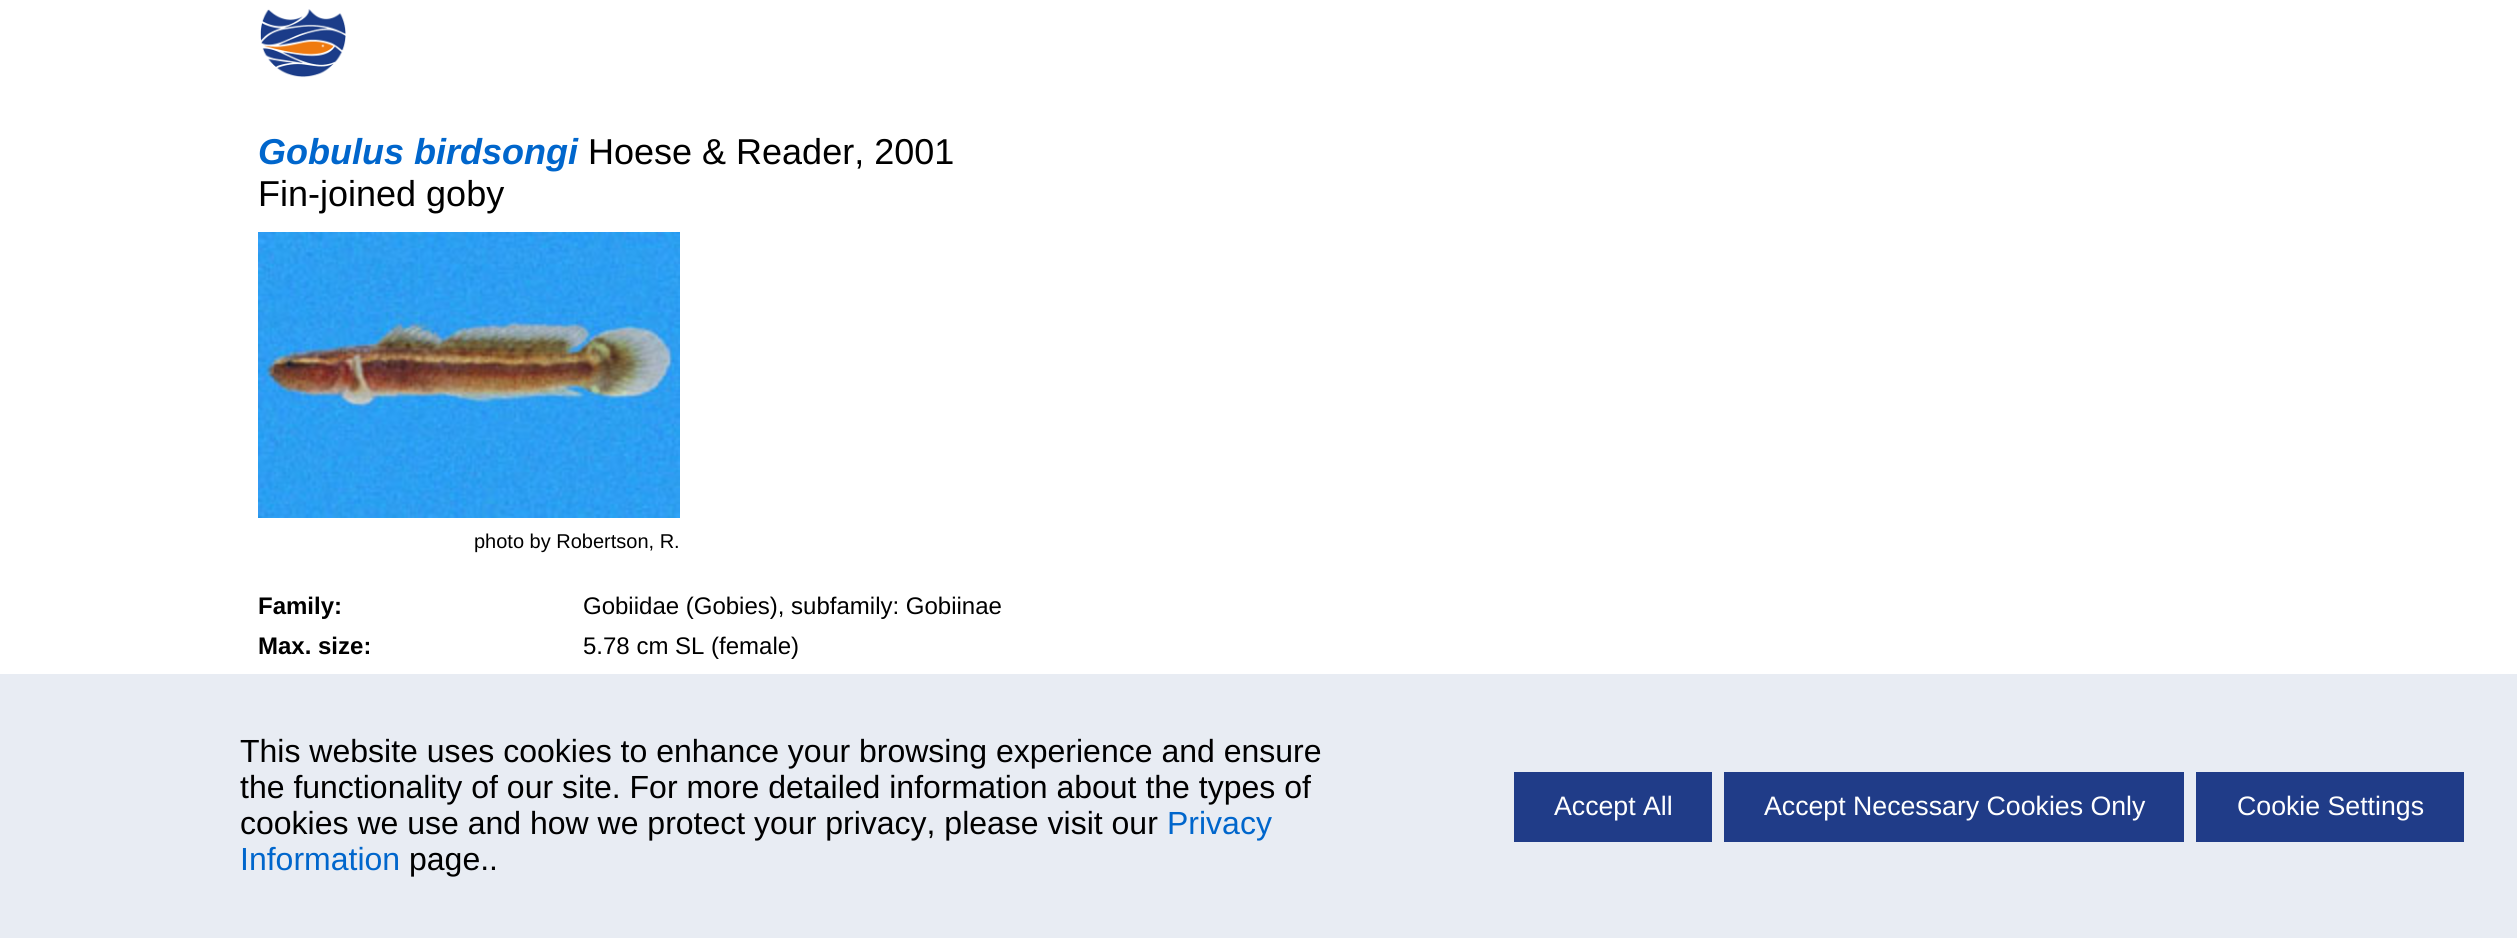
#include <cairo.h>
#include <math.h>
#include <stddef.h>


static void picture(cairo_t *cr, const char *path, double x, double y, double w, double h) {
    cairo_surface_t *image = cairo_image_surface_create_from_png(path);
    cairo_save(cr);
    cairo_set_source_surface(cr, image, x, y);
    cairo_rectangle(cr, x, y, w, h);
    cairo_fill(cr);
    cairo_restore(cr);
    cairo_surface_destroy(image);
}

int main(void) {
    cairo_surface_t *surface = cairo_image_surface_create(CAIRO_FORMAT_RGB24, 2517, 938);
    cairo_t *cr = cairo_create(surface);
    cairo_font_options_t *options = cairo_font_options_create();
    cairo_font_options_set_hint_metrics(options, CAIRO_HINT_METRICS_OFF);
    cairo_font_options_set_hint_style(options, CAIRO_HINT_STYLE_NONE);
    cairo_set_font_options(cr, options);
    cairo_set_miter_limit(cr, 4);
    cairo_set_source_rgb(cr, 1, 1, 1);
    cairo_paint(cr);
    picture(cr, "img1.png", 260, 9, 86, 69);
    cairo_select_font_face(cr, "Liberation Sans", CAIRO_FONT_SLANT_ITALIC, CAIRO_FONT_WEIGHT_BOLD);
    cairo_set_font_size(cr, 36);
    cairo_set_source_rgb(cr, 0, 0.4, 0.8);
    cairo_move_to(cr, 258, 164);
    cairo_show_text(cr, "Gobulus birdsongi");
    cairo_select_font_face(cr, "Liberation Sans", CAIRO_FONT_SLANT_NORMAL, CAIRO_FONT_WEIGHT_NORMAL);
    cairo_set_source_rgb(cr, 0, 0, 0);
    cairo_move_to(cr, 588, 164);
    cairo_show_text(cr, "Hoese & Reader, 2001");
    cairo_move_to(cr, 258, 206);
    cairo_show_text(cr, "Fin-joined goby");
    picture(cr, "img2.png", 258, 232, 422, 286);
    cairo_set_font_size(cr, 20);
    cairo_move_to(cr, 474, 548);
    cairo_show_text(cr, "photo by Robertson, R.");
    cairo_select_font_face(cr, "Liberation Sans", CAIRO_FONT_SLANT_NORMAL, CAIRO_FONT_WEIGHT_BOLD);
    cairo_set_font_size(cr, 24);
    cairo_move_to(cr, 258, 614);
    cairo_show_text(cr, "Family:");
    cairo_select_font_face(cr, "Liberation Sans", CAIRO_FONT_SLANT_NORMAL, CAIRO_FONT_WEIGHT_NORMAL);
    cairo_move_to(cr, 583, 614);
    cairo_show_text(cr, "Gobiidae (Gobies), subfamily: Gobiinae");
    cairo_select_font_face(cr, "Liberation Sans", CAIRO_FONT_SLANT_NORMAL, CAIRO_FONT_WEIGHT_BOLD);
    cairo_move_to(cr, 258, 654);
    cairo_show_text(cr, "Max. size:");
    cairo_select_font_face(cr, "Liberation Sans", CAIRO_FONT_SLANT_NORMAL, CAIRO_FONT_WEIGHT_NORMAL);
    cairo_move_to(cr, 583, 654);
    cairo_show_text(cr, "5.78 cm SL (female)");
    cairo_set_source_rgb(cr, 0.91, 0.922, 0.953);
    cairo_rectangle(cr, 0, 674, 2517, 264);
    cairo_fill(cr);
    cairo_set_font_size(cr, 32);
    cairo_set_source_rgb(cr, 0, 0, 0);
    cairo_move_to(cr, 240, 762);
    cairo_show_text(cr, "This website uses cookies to enhance your browsing experience and ensure");
    cairo_move_to(cr, 240, 798);
    cairo_show_text(cr, "the functionality of our site. For more detailed information about the types of");
    cairo_move_to(cr, 240, 834);
    cairo_show_text(cr, "cookies we use and how we protect your privacy, please visit our");
    cairo_set_source_rgb(cr, 0, 0.4, 0.8);
    cairo_move_to(cr, 1167, 834);
    cairo_show_text(cr, "Privacy");
    cairo_move_to(cr, 240, 870);
    cairo_show_text(cr, "Information");
    cairo_set_source_rgb(cr, 0, 0, 0);
    cairo_move_to(cr, 409, 870);
    cairo_show_text(cr, "page..");
    cairo_set_source_rgb(cr, 0.125, 0.235, 0.533);
    cairo_rectangle(cr, 1514, 772, 198, 70);
    cairo_fill(cr);
    cairo_set_font_size(cr, 26.7);
    cairo_set_source_rgb(cr, 1, 1, 1);
    cairo_move_to(cr, 1554, 815);
    cairo_show_text(cr, "Accept All");
    cairo_set_source_rgb(cr, 0.125, 0.235, 0.533);
    cairo_rectangle(cr, 1724, 772, 460, 70);
    cairo_fill(cr);
    cairo_set_source_rgb(cr, 1, 1, 1);
    cairo_move_to(cr, 1764, 815);
    cairo_show_text(cr, "Accept Necessary Cookies Only");
    cairo_set_source_rgb(cr, 0.125, 0.235, 0.533);
    cairo_rectangle(cr, 2196, 772, 268, 70);
    cairo_fill(cr);
    cairo_set_source_rgb(cr, 1, 1, 1);
    cairo_move_to(cr, 2237, 815);
    cairo_show_text(cr, "Cookie Settings");
    cairo_surface_write_to_png(surface, "page.png");
    cairo_font_options_destroy(options);
    cairo_destroy(cr);
    cairo_surface_destroy(surface);
    return 0;
}
